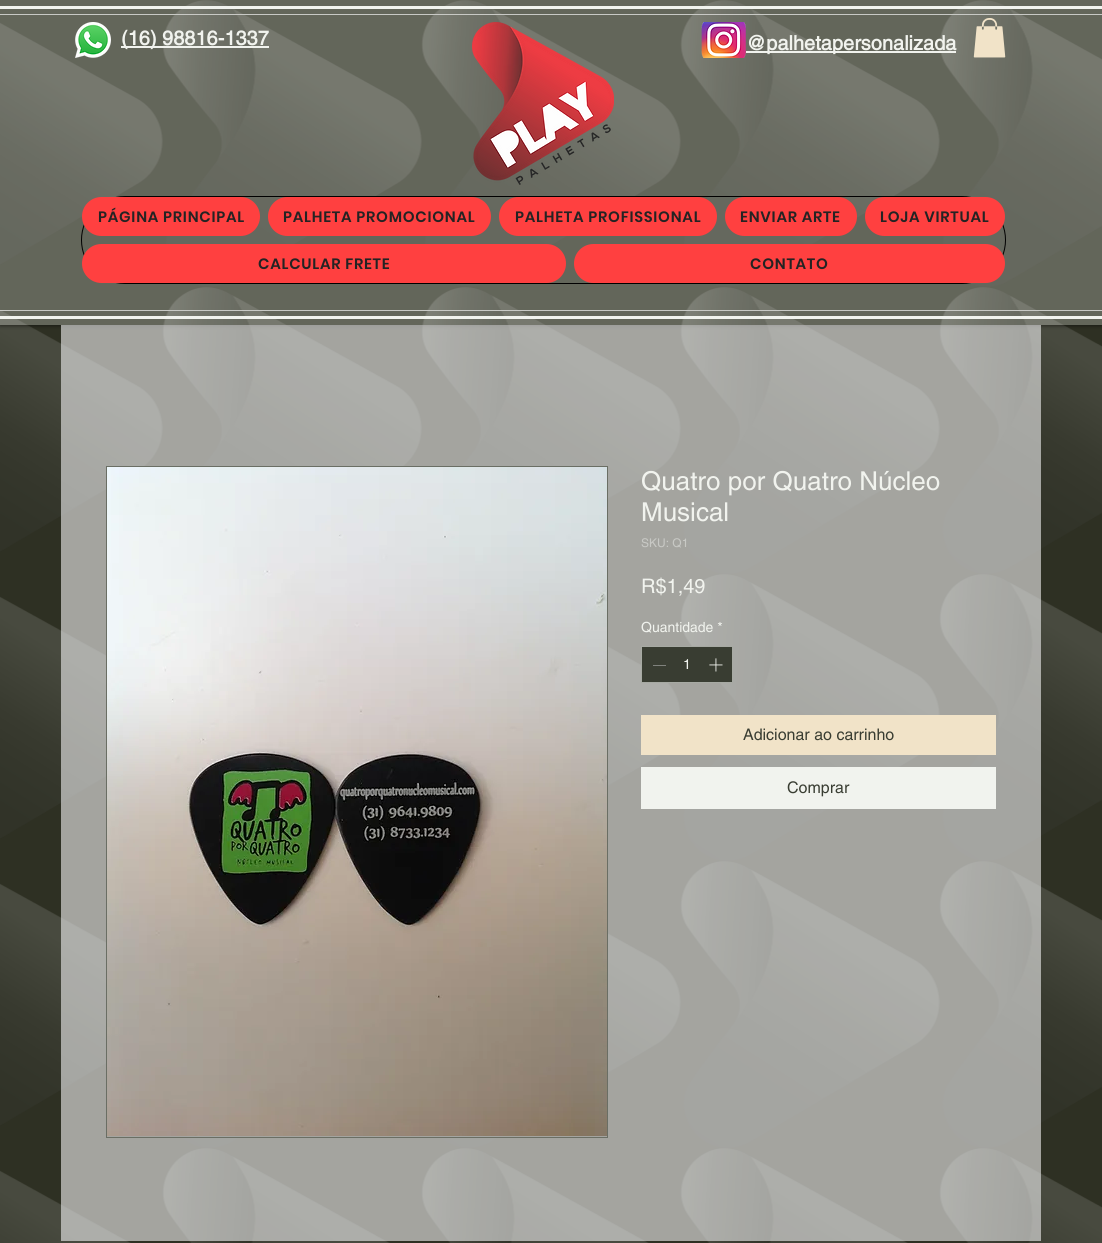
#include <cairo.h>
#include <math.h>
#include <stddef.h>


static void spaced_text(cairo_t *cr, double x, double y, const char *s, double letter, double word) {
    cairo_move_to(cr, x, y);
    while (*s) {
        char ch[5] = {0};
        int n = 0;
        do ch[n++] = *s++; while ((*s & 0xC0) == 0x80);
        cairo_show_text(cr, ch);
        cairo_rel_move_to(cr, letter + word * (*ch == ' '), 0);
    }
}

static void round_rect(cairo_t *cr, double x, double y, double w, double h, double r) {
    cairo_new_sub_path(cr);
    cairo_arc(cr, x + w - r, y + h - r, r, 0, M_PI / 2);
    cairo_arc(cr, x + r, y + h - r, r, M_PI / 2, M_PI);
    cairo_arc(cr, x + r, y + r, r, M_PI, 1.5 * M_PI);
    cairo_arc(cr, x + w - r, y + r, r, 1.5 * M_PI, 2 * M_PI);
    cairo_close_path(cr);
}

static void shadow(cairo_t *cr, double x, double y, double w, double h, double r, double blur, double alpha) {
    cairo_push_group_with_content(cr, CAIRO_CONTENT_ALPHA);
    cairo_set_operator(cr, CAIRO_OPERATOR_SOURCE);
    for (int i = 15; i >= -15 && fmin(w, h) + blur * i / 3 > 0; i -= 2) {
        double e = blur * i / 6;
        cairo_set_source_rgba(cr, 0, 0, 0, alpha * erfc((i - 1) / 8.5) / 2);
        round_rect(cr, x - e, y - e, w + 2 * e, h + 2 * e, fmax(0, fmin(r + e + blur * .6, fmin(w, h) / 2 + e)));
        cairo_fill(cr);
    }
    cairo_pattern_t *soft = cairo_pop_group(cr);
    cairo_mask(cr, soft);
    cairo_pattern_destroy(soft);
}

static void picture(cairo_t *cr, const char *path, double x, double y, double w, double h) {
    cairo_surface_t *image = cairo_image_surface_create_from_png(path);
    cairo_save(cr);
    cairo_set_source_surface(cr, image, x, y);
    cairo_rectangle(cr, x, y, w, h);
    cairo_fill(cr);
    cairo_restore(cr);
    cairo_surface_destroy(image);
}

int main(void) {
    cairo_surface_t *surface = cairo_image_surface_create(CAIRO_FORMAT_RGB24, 1102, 1243);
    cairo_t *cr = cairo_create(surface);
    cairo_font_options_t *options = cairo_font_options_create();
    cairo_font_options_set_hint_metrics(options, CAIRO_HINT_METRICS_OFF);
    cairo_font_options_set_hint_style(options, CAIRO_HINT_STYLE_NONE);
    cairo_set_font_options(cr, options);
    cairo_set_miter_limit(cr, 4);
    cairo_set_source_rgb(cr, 0.18, 0.188, 0.137);
    cairo_paint(cr);
    picture(cr, "img1.png", 0, 0, 1102, 1243);
    cairo_save(cr);
    cairo_rectangle(cr, 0, 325, 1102, 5);
    cairo_clip(cr);
    cairo_set_source_rgb(cr, 0, 0, 0);
    shadow(cr, 0, 0, 1102, 325, 0, 2.5, 0.7);
    cairo_restore(cr);
    cairo_set_source_rgba(cr, 0.933, 0.941, 0.914, 0.28);
    cairo_rectangle(cr, 0, 0, 1102, 325);
    cairo_fill(cr);
    cairo_set_source_rgb(cr, 0.945, 0.953, 0.933);
    cairo_rectangle(cr, 0, 6, 1102, 3);
    cairo_fill(cr);
    cairo_rectangle(cr, 0, 316, 1102, 3);
    cairo_fill(cr);
    cairo_set_source_rgb(cr, 0.784, 0.788, 0.773);
    cairo_rectangle(cr, 0, 14, 1102, 1);
    cairo_fill(cr);
    cairo_rectangle(cr, 0, 310, 1102, 1);
    cairo_fill(cr);
    picture(cr, "img2.png", 75, 22, 36, 36);
    cairo_set_source_rgb(cr, 0.945, 0.953, 0.933);
    cairo_rectangle(cr, 121, 46, 148, 2);
    cairo_fill(cr);
    cairo_select_font_face(cr, "helvetica", CAIRO_FONT_SLANT_NORMAL, CAIRO_FONT_WEIGHT_BOLD);
    cairo_set_font_size(cr, 20);
    cairo_move_to(cr, 121, 45);
    cairo_show_text(cr, "(16) 98816-1337");
    picture(cr, "img3.png", 472, 22, 142, 163);
    picture(cr, "img4.png", 701, 22, 45, 36);
    cairo_rectangle(cr, 746, 51, 210, 2);
    cairo_fill(cr);
    cairo_move_to(cr, 746, 50);
    cairo_show_text(cr, "@palhetapersonalizada");
    picture(cr, "img5.png", 973, 18, 33, 40);
    round_rect(cr, 81.5, 196.5, 924, 87, 43.5);
    cairo_set_source_rgb(cr, 0, 0, 0);
    cairo_set_line_width(cr, 1);
    cairo_stroke(cr);
    cairo_set_source_rgb(cr, 1, 0.251, 0.251);
    round_rect(cr, 82, 197, 178, 39, 19.5);
    cairo_fill(cr);
    cairo_select_font_face(cr, "Poppins SemiBold", CAIRO_FONT_SLANT_NORMAL, CAIRO_FONT_WEIGHT_NORMAL);
    cairo_set_font_size(cr, 15);
    cairo_set_source_rgb(cr, 0.141, 0.137, 0.137);
    spaced_text(cr, 98, 222, "PÁGINA PRINCIPAL", 0.75, 0);
    cairo_set_source_rgb(cr, 1, 0.251, 0.251);
    round_rect(cr, 268, 197, 223, 39, 19.5);
    cairo_fill(cr);
    cairo_set_source_rgb(cr, 0.141, 0.137, 0.137);
    spaced_text(cr, 283, 222, "PALHETA PROMOCIONAL", 0.75, 0);
    cairo_set_source_rgb(cr, 1, 0.251, 0.251);
    round_rect(cr, 499, 197, 218, 39, 19.5);
    cairo_fill(cr);
    cairo_set_source_rgb(cr, 0.141, 0.137, 0.137);
    spaced_text(cr, 515, 222, "PALHETA PROFISSIONAL", 0.75, 0);
    cairo_set_source_rgb(cr, 1, 0.251, 0.251);
    round_rect(cr, 725, 197, 132, 39, 19.5);
    cairo_fill(cr);
    cairo_set_source_rgb(cr, 0.141, 0.137, 0.137);
    spaced_text(cr, 740, 222, "ENVIAR ARTE", 0.75, 0);
    cairo_set_source_rgb(cr, 1, 0.251, 0.251);
    round_rect(cr, 865, 197, 140, 39, 19.5);
    cairo_fill(cr);
    cairo_set_source_rgb(cr, 0.141, 0.137, 0.137);
    spaced_text(cr, 880, 222, "LOJA VIRTUAL", 0.75, 0);
    cairo_set_source_rgb(cr, 1, 0.251, 0.251);
    round_rect(cr, 82, 244, 484, 39, 19.5);
    cairo_fill(cr);
    cairo_set_source_rgb(cr, 0.141, 0.137, 0.137);
    spaced_text(cr, 258, 269, "CALCULAR FRETE", 0.75, 0);
    cairo_set_source_rgb(cr, 1, 0.251, 0.251);
    round_rect(cr, 574, 244, 431, 39, 19.5);
    cairo_fill(cr);
    cairo_set_source_rgb(cr, 0.141, 0.137, 0.137);
    spaced_text(cr, 750, 269, "CONTATO", 0.75, 0);
    cairo_set_source_rgba(cr, 0.839, 0.839, 0.839, 0.53);
    cairo_rectangle(cr, 61, 325, 980, 916);
    cairo_fill(cr);
    cairo_set_source_rgba(cr, 1, 1, 1, 0.24);
    cairo_rectangle(cr, 61, 325, 980, 916);
    cairo_fill(cr);
    cairo_rectangle(cr, 106.5, 466.5, 501, 671);
    cairo_set_source_rgb(cr, 0.416, 0.431, 0.392);
    cairo_stroke(cr);
    picture(cr, "img6.png", 107, 467, 500, 669);
    cairo_select_font_face(cr, "helvetica", CAIRO_FONT_SLANT_NORMAL, CAIRO_FONT_WEIGHT_NORMAL);
    cairo_set_font_size(cr, 26);
    cairo_set_source_rgb(cr, 0.945, 0.953, 0.933);
    cairo_move_to(cr, 641, 490);
    cairo_show_text(cr, "Quatro por Quatro Núcleo");
    cairo_move_to(cr, 641, 521);
    cairo_show_text(cr, "Musical");
    cairo_set_font_size(cr, 12);
    cairo_set_source_rgb(cr, 0.784, 0.788, 0.773);
    cairo_move_to(cr, 641, 547);
    cairo_show_text(cr, "SKU: Q1");
    cairo_set_font_size(cr, 20);
    cairo_set_source_rgb(cr, 0.945, 0.953, 0.933);
    cairo_move_to(cr, 641, 593);
    cairo_show_text(cr, "R$1,49");
    cairo_set_font_size(cr, 14);
    cairo_move_to(cr, 641, 632);
    cairo_show_text(cr, "Quantidade *");
    cairo_set_source_rgb(cr, 0.224, 0.239, 0.196);
    cairo_rectangle(cr, 641.5, 646.5, 91, 36);
    cairo_fill_preserve(cr);
    cairo_set_source_rgb(cr, 0.655, 0.667, 0.639);
    cairo_stroke(cr);
    cairo_set_source_rgb(cr, 0.502, 0.51, 0.49);
    cairo_rectangle(cr, 653, 665, 13, 1);
    cairo_fill(cr);
    cairo_set_source_rgb(cr, 0.945, 0.953, 0.933);
    cairo_move_to(cr, 683, 669);
    cairo_show_text(cr, "1");
    picture(cr, "img7.png", 709, 658, 14, 14);
    cairo_set_source_rgb(cr, 0.945, 0.89, 0.784);
    cairo_rectangle(cr, 641, 715, 355, 40);
    cairo_fill(cr);
    cairo_set_font_size(cr, 16);
    cairo_set_source_rgb(cr, 0.224, 0.239, 0.196);
    cairo_move_to(cr, 743, 740);
    cairo_show_text(cr, "Adicionar ao carrinho");
    cairo_set_source_rgb(cr, 0.945, 0.953, 0.933);
    cairo_rectangle(cr, 641, 767, 355, 42);
    cairo_fill(cr);
    cairo_set_source_rgb(cr, 0.224, 0.239, 0.196);
    cairo_move_to(cr, 787, 793);
    cairo_show_text(cr, "Comprar");
    cairo_surface_write_to_png(surface, "page.png");
    cairo_font_options_destroy(options);
    cairo_destroy(cr);
    cairo_surface_destroy(surface);
    return 0;
}
